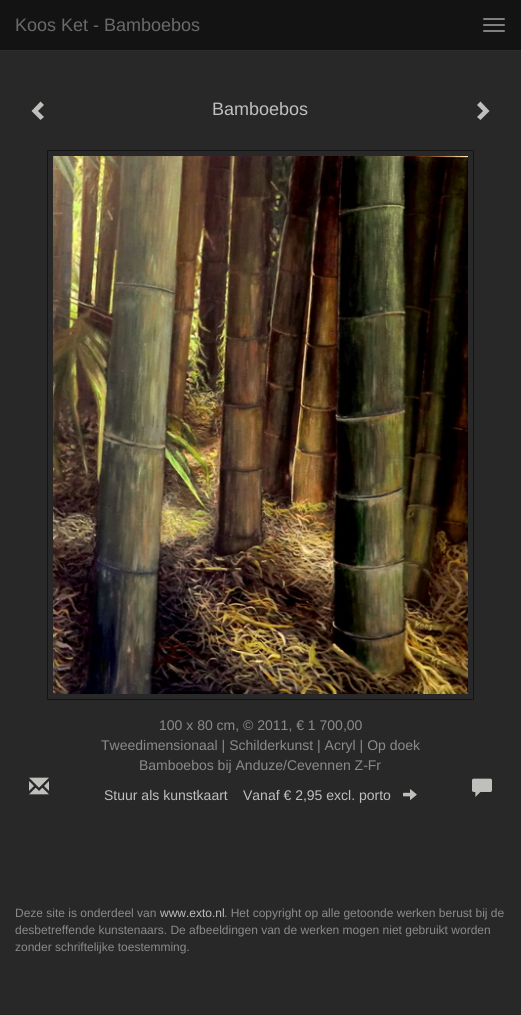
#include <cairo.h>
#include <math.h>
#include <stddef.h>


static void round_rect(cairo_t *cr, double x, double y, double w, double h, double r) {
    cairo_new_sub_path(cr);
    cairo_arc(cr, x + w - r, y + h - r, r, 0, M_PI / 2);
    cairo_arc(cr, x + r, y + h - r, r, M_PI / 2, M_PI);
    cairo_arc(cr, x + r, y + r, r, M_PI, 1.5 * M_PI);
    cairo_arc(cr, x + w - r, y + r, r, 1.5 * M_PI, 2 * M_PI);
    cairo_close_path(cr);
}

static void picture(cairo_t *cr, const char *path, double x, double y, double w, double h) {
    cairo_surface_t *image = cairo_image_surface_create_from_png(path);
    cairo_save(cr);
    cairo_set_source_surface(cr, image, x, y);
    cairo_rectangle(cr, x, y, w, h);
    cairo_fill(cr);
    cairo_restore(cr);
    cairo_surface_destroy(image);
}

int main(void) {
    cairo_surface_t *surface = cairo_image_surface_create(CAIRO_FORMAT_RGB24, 521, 1015);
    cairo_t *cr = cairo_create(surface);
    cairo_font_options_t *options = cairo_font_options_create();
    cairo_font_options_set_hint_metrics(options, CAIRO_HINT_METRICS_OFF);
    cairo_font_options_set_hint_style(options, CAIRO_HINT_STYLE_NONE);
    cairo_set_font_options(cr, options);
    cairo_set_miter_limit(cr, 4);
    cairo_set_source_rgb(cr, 0.157, 0.157, 0.157);
    cairo_paint(cr);
    cairo_set_source_rgb(cr, 0.078, 0.078, 0.078);
    cairo_rectangle(cr, 0, 0, 521, 50);
    cairo_fill(cr);
    cairo_set_source_rgb(cr, 0.176, 0.176, 0.176);
    cairo_rectangle(cr, 0, 50, 521, 1);
    cairo_fill(cr);
    cairo_select_font_face(cr, "Liberation Sans", CAIRO_FONT_SLANT_NORMAL, CAIRO_FONT_WEIGHT_NORMAL);
    cairo_set_font_size(cr, 18);
    cairo_set_source_rgb(cr, 0.416, 0.416, 0.416);
    cairo_move_to(cr, 15, 31);
    cairo_show_text(cr, "Koos Ket - Bamboebos");
    cairo_set_source_rgb(cr, 0.502, 0.502, 0.502);
    round_rect(cr, 483, 18, 22, 2, 1);
    cairo_fill(cr);
    round_rect(cr, 483, 24, 22, 2, 1);
    cairo_fill(cr);
    round_rect(cr, 483, 30, 22, 2, 1);
    cairo_fill(cr);
    cairo_set_source_rgb(cr, 0.749, 0.753, 0.737);
    cairo_new_path(cr);
    cairo_move_to(cr, 44, 105);
    cairo_line_to(cr, 38, 111);
    cairo_line_to(cr, 44, 117);
    cairo_line_to(cr, 40.5, 120);
    cairo_line_to(cr, 31.5, 111);
    cairo_line_to(cr, 40.5, 101.5);
    cairo_close_path(cr);
    cairo_fill(cr);
    cairo_move_to(cr, 212, 115);
    cairo_show_text(cr, "Bamboebos");
    cairo_new_path(cr);
    cairo_move_to(cr, 489.5, 111);
    cairo_line_to(cr, 480.5, 120);
    cairo_line_to(cr, 477, 117);
    cairo_line_to(cr, 483, 111);
    cairo_line_to(cr, 477, 105);
    cairo_line_to(cr, 480.5, 101.5);
    cairo_close_path(cr);
    cairo_fill(cr);
    round_rect(cr, 47.5, 150.5, 426, 549, 0.5);
    cairo_set_source_rgb(cr, 0.078, 0.078, 0.078);
    cairo_set_line_width(cr, 1);
    cairo_stroke(cr);
    picture(cr, "img1.png", 53, 156, 415, 538);
    cairo_set_font_size(cr, 14);
    cairo_set_source_rgb(cr, 0.537, 0.545, 0.541);
    cairo_move_to(cr, 159, 730);
    cairo_show_text(cr, "100 x 80 cm, © 2011, € 1 700,00");
    cairo_move_to(cr, 101, 750);
    cairo_show_text(cr, "Tweedimensionaal | Schilderkunst | Acryl | Op doek");
    cairo_move_to(cr, 139, 770);
    cairo_show_text(cr, "Bamboebos bij Anduze/Cevennen Z-Fr");
    picture(cr, "img2.png", 29, 777, 20, 18);
    cairo_set_source_rgb(cr, 0.749, 0.753, 0.737);
    cairo_move_to(cr, 104, 800);
    cairo_show_text(cr, "Stuur als kunstkaart");
    cairo_move_to(cr, 243, 800);
    cairo_show_text(cr, "Vanaf € 2,95 excl. porto");
    picture(cr, "img3.png", 403, 789, 14, 11);
    picture(cr, "img4.png", 472, 778, 20, 19);
    cairo_set_font_size(cr, 12);
    cairo_set_source_rgb(cr, 0.537, 0.545, 0.541);
    cairo_move_to(cr, 15, 917);
    cairo_show_text(cr, "Deze site is onderdeel van");
    cairo_set_source_rgb(cr, 0.749, 0.753, 0.737);
    cairo_move_to(cr, 160, 917);
    cairo_show_text(cr, "www.exto.nl");
    cairo_set_source_rgb(cr, 0.537, 0.545, 0.541);
    cairo_move_to(cr, 224, 917);
    cairo_show_text(cr, ". Het copyright op alle getoonde werken berust bij de");
    cairo_move_to(cr, 15, 934);
    cairo_show_text(cr, "desbetreffende kunstenaars. De afbeeldingen van de werken mogen niet gebruikt worden");
    cairo_move_to(cr, 15, 951);
    cairo_show_text(cr, "zonder schriftelijke toestemming.");
    cairo_surface_write_to_png(surface, "page.png");
    cairo_font_options_destroy(options);
    cairo_destroy(cr);
    cairo_surface_destroy(surface);
    return 0;
}
